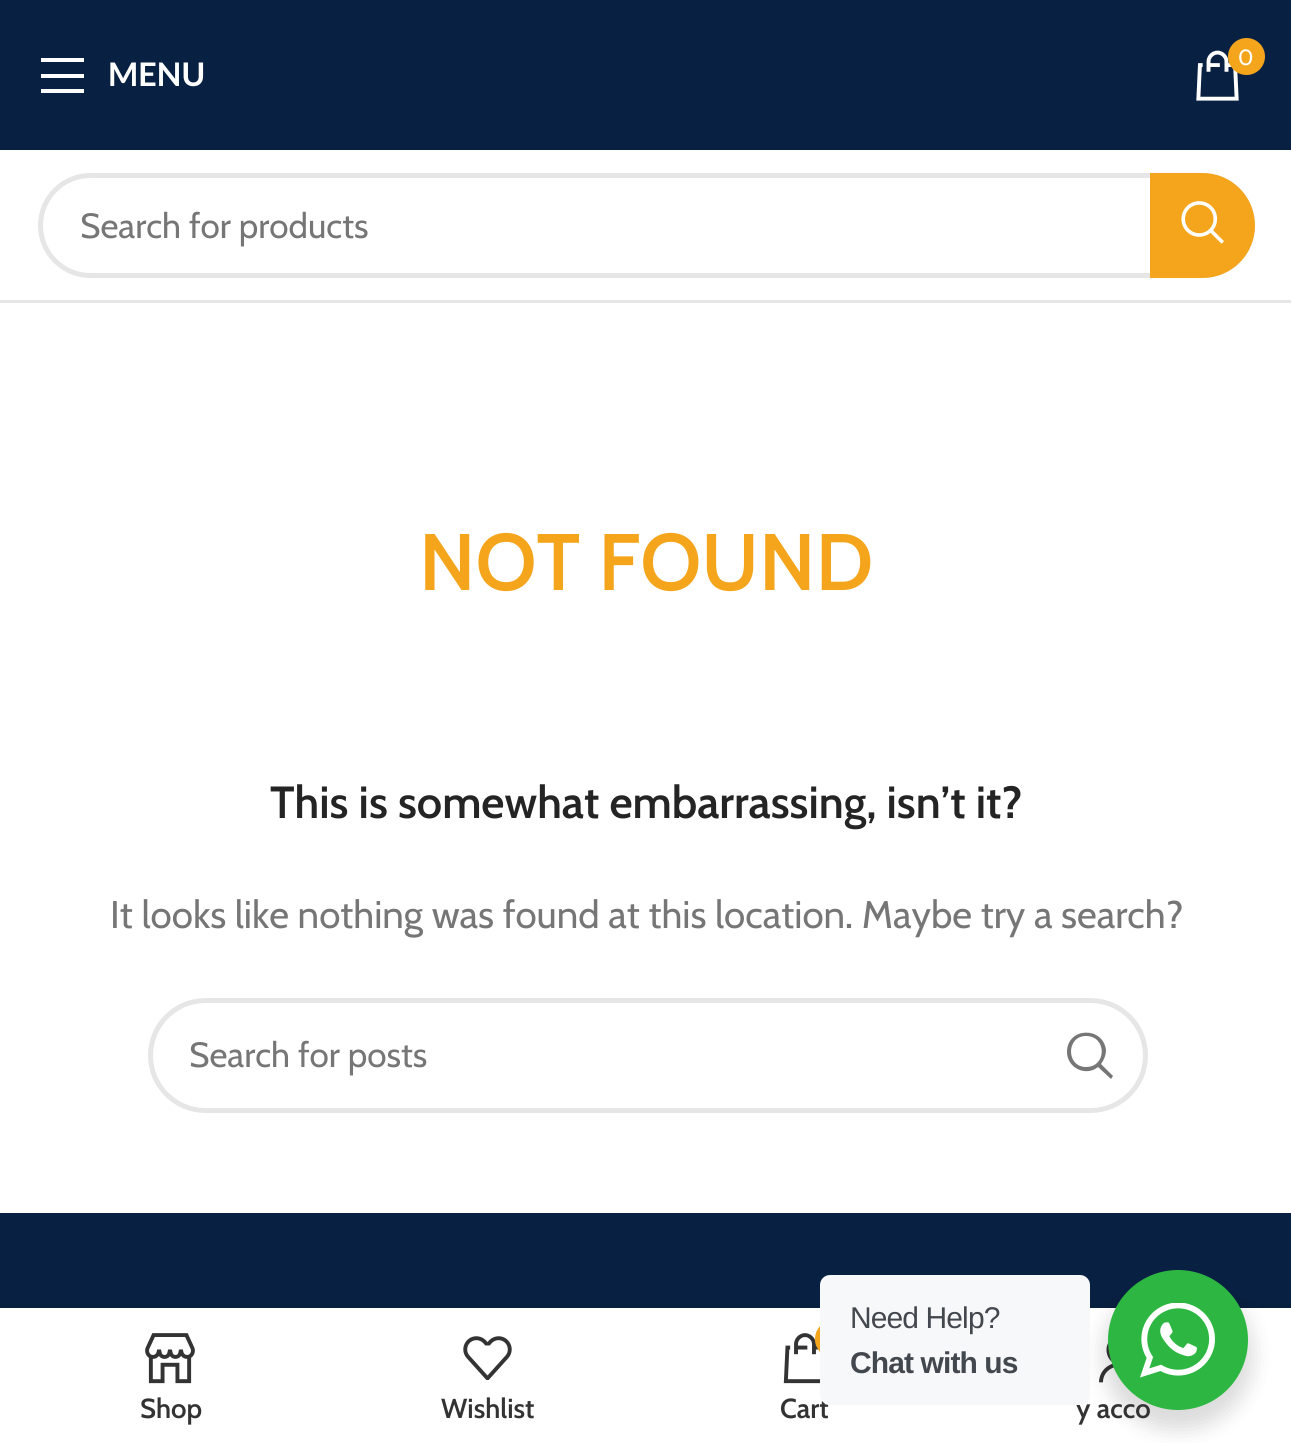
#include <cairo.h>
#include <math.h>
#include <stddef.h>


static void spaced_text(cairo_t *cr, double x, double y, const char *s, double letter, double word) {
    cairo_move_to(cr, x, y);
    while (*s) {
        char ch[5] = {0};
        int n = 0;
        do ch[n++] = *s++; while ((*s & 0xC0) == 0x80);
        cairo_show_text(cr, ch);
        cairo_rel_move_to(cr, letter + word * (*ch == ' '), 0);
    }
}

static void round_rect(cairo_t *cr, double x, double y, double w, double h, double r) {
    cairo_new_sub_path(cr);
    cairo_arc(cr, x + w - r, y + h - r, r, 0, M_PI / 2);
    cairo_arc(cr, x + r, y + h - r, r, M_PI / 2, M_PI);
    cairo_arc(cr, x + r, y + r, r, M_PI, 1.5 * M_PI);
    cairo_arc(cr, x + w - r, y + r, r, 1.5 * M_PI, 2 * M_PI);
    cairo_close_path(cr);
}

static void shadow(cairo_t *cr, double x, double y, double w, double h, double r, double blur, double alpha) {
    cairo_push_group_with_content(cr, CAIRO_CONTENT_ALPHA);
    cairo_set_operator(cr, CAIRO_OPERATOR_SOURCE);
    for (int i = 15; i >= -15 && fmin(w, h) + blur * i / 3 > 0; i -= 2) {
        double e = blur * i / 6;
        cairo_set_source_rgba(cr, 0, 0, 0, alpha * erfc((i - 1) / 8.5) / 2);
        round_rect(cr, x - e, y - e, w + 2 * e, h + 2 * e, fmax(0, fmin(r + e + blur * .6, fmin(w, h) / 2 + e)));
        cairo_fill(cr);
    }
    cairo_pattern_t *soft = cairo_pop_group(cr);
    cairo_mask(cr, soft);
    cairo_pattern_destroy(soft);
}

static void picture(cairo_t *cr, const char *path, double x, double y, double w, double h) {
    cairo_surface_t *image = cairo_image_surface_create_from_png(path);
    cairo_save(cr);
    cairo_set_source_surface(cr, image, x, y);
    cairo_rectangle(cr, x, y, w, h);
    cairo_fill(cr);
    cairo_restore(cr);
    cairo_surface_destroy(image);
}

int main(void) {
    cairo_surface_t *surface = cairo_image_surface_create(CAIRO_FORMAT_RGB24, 1291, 1443);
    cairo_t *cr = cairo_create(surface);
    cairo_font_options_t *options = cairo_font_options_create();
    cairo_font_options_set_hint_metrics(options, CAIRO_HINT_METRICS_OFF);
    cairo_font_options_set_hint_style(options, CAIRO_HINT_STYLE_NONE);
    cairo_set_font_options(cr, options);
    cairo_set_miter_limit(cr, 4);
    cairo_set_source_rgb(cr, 1, 1, 1);
    cairo_paint(cr);
    cairo_set_source_rgb(cr, 0.035, 0.129, 0.263);
    cairo_rectangle(cr, 0, 0, 1291, 150);
    cairo_fill(cr);
    picture(cr, "img1.png", 1196, 50, 43, 51);
    cairo_set_source_rgb(cr, 0.957, 0.647, 0.11);
    cairo_arc(cr, 1246.5, 56.5, 18.5, 0, 2 * M_PI);
    cairo_fill(cr);
    cairo_select_font_face(cr, "Cabin", CAIRO_FONT_SLANT_NORMAL, CAIRO_FONT_WEIGHT_NORMAL);
    cairo_set_font_size(cr, 22);
    cairo_set_source_rgb(cr, 1, 1, 1);
    cairo_move_to(cr, 1238, 65);
    cairo_show_text(cr, "0");
    cairo_new_path(cr);
    cairo_move_to(cr, 41, 62);
    cairo_line_to(cr, 84, 62);
    cairo_line_to(cr, 84, 58);
    cairo_line_to(cr, 41, 58);
    cairo_close_path(cr);
    cairo_move_to(cr, 41, 78);
    cairo_line_to(cr, 84, 78);
    cairo_line_to(cr, 84, 74);
    cairo_line_to(cr, 41, 74);
    cairo_close_path(cr);
    cairo_move_to(cr, 41, 93);
    cairo_line_to(cr, 84, 93);
    cairo_line_to(cr, 84, 89);
    cairo_line_to(cr, 41, 89);
    cairo_close_path(cr);
    cairo_fill(cr);
    cairo_select_font_face(cr, "Lato", CAIRO_FONT_SLANT_NORMAL, CAIRO_FONT_WEIGHT_BOLD);
    cairo_set_font_size(cr, 32.5);
    cairo_move_to(cr, 108, 86);
    cairo_show_text(cr, "MENU");
    cairo_set_source_rgb(cr, 0.902, 0.902, 0.902);
    cairo_rectangle(cr, 0, 300, 1291, 3);
    cairo_fill(cr);
    round_rect(cr, 40.5, 175.5, 1212, 100, 50);
    cairo_set_line_width(cr, 5);
    cairo_stroke(cr);
    cairo_select_font_face(cr, "Cabin", CAIRO_FONT_SLANT_NORMAL, CAIRO_FONT_WEIGHT_NORMAL);
    cairo_set_font_size(cr, 35);
    cairo_set_source_rgb(cr, 0.463, 0.463, 0.463);
    cairo_move_to(cr, 80, 238);
    cairo_show_text(cr, "Search for products");
    cairo_set_source_rgb(cr, 0.957, 0.647, 0.11);
    cairo_new_path(cr);
    cairo_move_to(cr, 1150, 173);
    cairo_line_to(cr, 1202.5, 173);
    cairo_curve_to(cr, 1231.5, 173, 1255, 196.5, 1255, 225.5);
    cairo_curve_to(cr, 1255, 254.5, 1231.5, 278, 1202.5, 278);
    cairo_line_to(cr, 1150, 278);
    cairo_close_path(cr);
    cairo_fill(cr);
    picture(cr, "img2.png", 1181, 201, 43, 43);
    cairo_select_font_face(cr, "Cabin SemiBold", CAIRO_FONT_SLANT_NORMAL, CAIRO_FONT_WEIGHT_NORMAL);
    cairo_set_font_size(cr, 80);
    cairo_move_to(cr, 419, 590);
    cairo_show_text(cr, "NOT FOUND");
    cairo_set_font_size(cr, 45);
    cairo_set_source_rgb(cr, 0.141, 0.141, 0.141);
    cairo_move_to(cr, 270, 818);
    cairo_show_text(cr, "This is somewhat embarrassing, isn’t it?");
    cairo_select_font_face(cr, "Cabin", CAIRO_FONT_SLANT_NORMAL, CAIRO_FONT_WEIGHT_NORMAL);
    cairo_set_font_size(cr, 38.5);
    cairo_set_source_rgb(cr, 0.463, 0.463, 0.463);
    cairo_move_to(cr, 110, 928);
    cairo_show_text(cr, "It looks like nothing was found at this location. Maybe try a search?");
    round_rect(cr, 150.5, 1000.5, 995, 110, 55);
    cairo_set_source_rgb(cr, 0.902, 0.902, 0.902);
    cairo_stroke(cr);
    cairo_set_font_size(cr, 35);
    cairo_set_source_rgb(cr, 0.463, 0.463, 0.463);
    cairo_move_to(cr, 189, 1067);
    cairo_show_text(cr, "Search for posts");
    cairo_new_path(cr);
    cairo_move_to(cr, 1067, 1052);
    cairo_curve_to(cr, 1067, 1068, 1086, 1077, 1098, 1067);
    cairo_line_to(cr, 1111, 1079);
    cairo_line_to(cr, 1113, 1076);
    cairo_line_to(cr, 1101, 1064);
    cairo_curve_to(cr, 1104, 1060, 1106, 1055, 1106, 1050);
    cairo_curve_to(cr, 1103, 1026, 1067, 1027, 1067, 1052);
    cairo_close_path(cr);
    cairo_move_to(cr, 1086, 1067);
    cairo_curve_to(cr, 1066, 1067, 1066, 1036, 1086, 1036);
    cairo_curve_to(cr, 1107, 1036, 1107, 1067, 1086, 1067);
    cairo_close_path(cr);
    cairo_fill(cr);
    cairo_set_source_rgb(cr, 0.035, 0.129, 0.263);
    cairo_rectangle(cr, 0, 1213, 1291, 95);
    cairo_fill(cr);
    cairo_set_source_rgb(cr, 0, 0, 0);
    shadow(cr, 0, 1308, 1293, 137, 0, 11, 0.12);
    cairo_set_source_rgb(cr, 1, 1, 1);
    cairo_rectangle(cr, 0, 1308, 1291, 135);
    cairo_fill(cr);
    picture(cr, "img7.png", 1099, 1341, 15, 42);
    cairo_set_source_rgb(cr, 0, 0, 0);
    shadow(cr, 1103, 1280, 150, 150, 75, 10, 0.14);
    picture(cr, "img6.png", 783, 1333, 37, 51);
    cairo_set_source_rgb(cr, 0.957, 0.647, 0.11);
    cairo_arc(cr, 834, 1339, 19, 0, 2 * M_PI);
    cairo_fill(cr);
    cairo_select_font_face(cr, "Cabin SemiBold", CAIRO_FONT_SLANT_NORMAL, CAIRO_FONT_WEIGHT_NORMAL);
    cairo_set_font_size(cr, 27.5);
    cairo_set_source_rgb(cr, 0.2, 0.2, 0.2);
    cairo_move_to(cr, 780, 1418);
    cairo_show_text(cr, "Cart");
    cairo_move_to(cr, 1076, 1418);
    cairo_show_text(cr, "y acco");
    cairo_set_source_rgb(cr, 0.961, 0.969, 0.976);
    round_rect(cr, 820, 1275, 270, 130, 10);
    cairo_fill(cr);
    cairo_select_font_face(cr, "Liberation Sans", CAIRO_FONT_SLANT_NORMAL, CAIRO_FONT_WEIGHT_NORMAL);
    cairo_set_font_size(cr, 30);
    cairo_set_source_rgb(cr, 0.263, 0.278, 0.306);
    spaced_text(cr, 850, 1328, "Need Help?", -0.9, 0);
    cairo_select_font_face(cr, "Liberation Sans", CAIRO_FONT_SLANT_NORMAL, CAIRO_FONT_WEIGHT_BOLD);
    spaced_text(cr, 850, 1373, "Chat with us", -0.9, 0);
    cairo_set_source_rgb(cr, 0.176, 0.718, 0.259);
    cairo_new_path(cr);
    cairo_arc(cr, 1178, 1340, 70, 0, 2 * M_PI);
    cairo_fill(cr);
    picture(cr, "img3.png", 1140, 1303, 75, 75);
    picture(cr, "img4.png", 145, 1333, 50, 51);
    cairo_select_font_face(cr, "Cabin SemiBold", CAIRO_FONT_SLANT_NORMAL, CAIRO_FONT_WEIGHT_NORMAL);
    cairo_set_font_size(cr, 27.5);
    cairo_set_source_rgb(cr, 0.2, 0.2, 0.2);
    cairo_move_to(cr, 140, 1418);
    cairo_show_text(cr, "Shop");
    picture(cr, "img5.png", 463, 1336, 49, 44);
    cairo_move_to(cr, 441, 1418);
    cairo_show_text(cr, "Wishlist");
    cairo_surface_write_to_png(surface, "page.png");
    cairo_font_options_destroy(options);
    cairo_destroy(cr);
    cairo_surface_destroy(surface);
    return 0;
}
